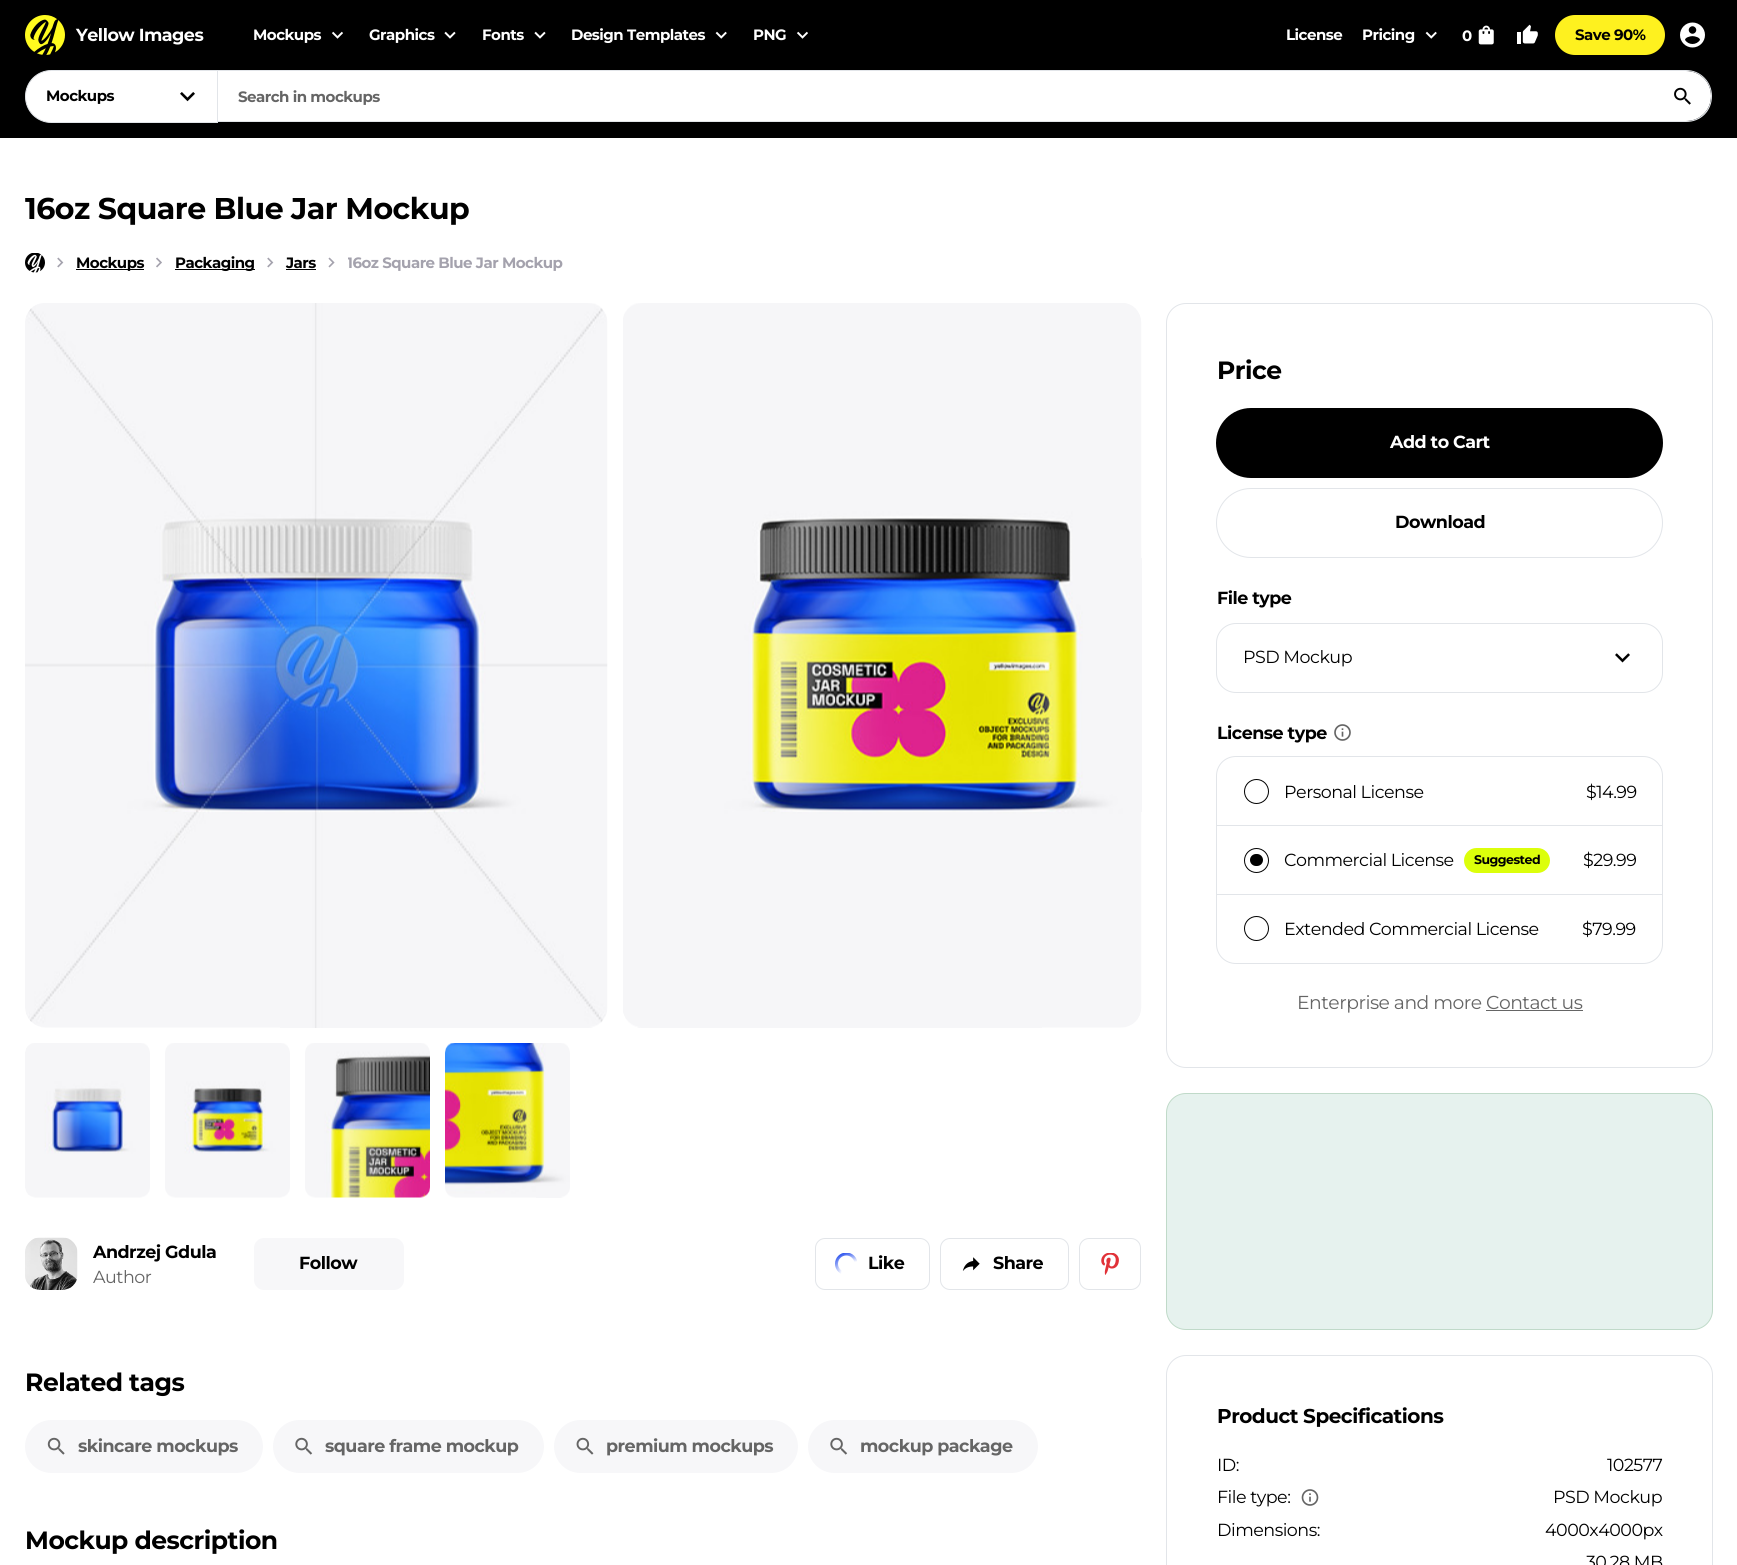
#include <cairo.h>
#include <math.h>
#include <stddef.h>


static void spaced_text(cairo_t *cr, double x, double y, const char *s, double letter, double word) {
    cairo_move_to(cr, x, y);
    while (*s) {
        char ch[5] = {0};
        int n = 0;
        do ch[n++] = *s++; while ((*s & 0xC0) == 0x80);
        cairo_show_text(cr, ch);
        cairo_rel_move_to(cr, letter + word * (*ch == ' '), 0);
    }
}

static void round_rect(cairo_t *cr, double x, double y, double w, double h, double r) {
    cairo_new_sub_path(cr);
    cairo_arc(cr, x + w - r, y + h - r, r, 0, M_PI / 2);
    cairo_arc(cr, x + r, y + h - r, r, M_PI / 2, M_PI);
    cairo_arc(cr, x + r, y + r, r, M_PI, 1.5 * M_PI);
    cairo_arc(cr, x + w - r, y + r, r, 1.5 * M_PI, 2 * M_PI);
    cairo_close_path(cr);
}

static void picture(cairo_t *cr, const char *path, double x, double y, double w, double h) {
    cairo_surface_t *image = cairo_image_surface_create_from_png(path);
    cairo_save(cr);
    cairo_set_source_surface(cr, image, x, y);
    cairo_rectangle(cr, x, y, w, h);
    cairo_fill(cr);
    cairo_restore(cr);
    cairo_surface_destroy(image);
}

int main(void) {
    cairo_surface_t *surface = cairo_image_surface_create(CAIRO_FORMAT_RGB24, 1737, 1565);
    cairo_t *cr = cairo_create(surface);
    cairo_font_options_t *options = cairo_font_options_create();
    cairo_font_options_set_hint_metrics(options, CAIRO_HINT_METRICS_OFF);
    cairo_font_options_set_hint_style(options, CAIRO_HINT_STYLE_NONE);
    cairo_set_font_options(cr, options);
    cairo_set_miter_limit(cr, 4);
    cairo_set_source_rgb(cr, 1, 1, 1);
    cairo_paint(cr);
    cairo_set_source_rgb(cr, 0, 0, 0);
    cairo_rectangle(cr, 0, 0, 1737, 138);
    cairo_fill(cr);
    picture(cr, "img1.png", 25, 15, 40, 40);
    cairo_select_font_face(cr, "Montserrat Thin", CAIRO_FONT_SLANT_NORMAL, CAIRO_FONT_WEIGHT_NORMAL);
    cairo_set_font_size(cr, 17.5);
    cairo_set_source_rgb(cr, 1, 1, 1);
    spaced_text(cr, 76, 41, "Yellow Images", -0.5, 0);
    cairo_set_font_size(cr, 15);
    spaced_text(cr, 253, 40, "Mockups", -0.5, 0);
    picture(cr, "img2.png", 332, 31, 11, 8);
    spaced_text(cr, 369, 40, "Graphics", -0.5, 0);
    picture(cr, "img3.png", 444, 31, 12, 8);
    spaced_text(cr, 482, 40, "Fonts", -0.5, 0);
    picture(cr, "img3.png", 534, 31, 12, 8);
    spaced_text(cr, 571, 40, "Design Templates", -0.5, 0);
    picture(cr, "img4.png", 715, 31, 12, 8);
    spaced_text(cr, 753, 40, "PNG", -0.5, 0);
    picture(cr, "img2.png", 797, 31, 11, 8);
    spaced_text(cr, 1286, 40, "License", -0.5, 0);
    spaced_text(cr, 1362, 40, "Pricing", -0.5, 0);
    picture(cr, "img4.png", 1425, 31, 12, 8);
    spaced_text(cr, 1462, 41, "0", -0.5, 0);
    picture(cr, "img5.png", 1478, 25, 16, 20);
    picture(cr, "img6.png", 1517, 24, 21, 20);
    cairo_set_source_rgb(cr, 0.996, 0.945, 0.122);
    round_rect(cr, 1555, 15, 110, 40, 20);
    cairo_fill(cr);
    cairo_set_source_rgb(cr, 0, 0, 0);
    spaced_text(cr, 1575, 40, "Save 90%", -0.5, 0);
    picture(cr, "img7.png", 1680, 22, 25, 26);
    cairo_set_source_rgb(cr, 1, 1, 1);
    cairo_new_path(cr);
    cairo_move_to(cr, 51.5, 70.5);
    cairo_line_to(cr, 217.5, 70.5);
    cairo_line_to(cr, 217.5, 122.5);
    cairo_line_to(cr, 51.5, 122.5);
    cairo_curve_to(cr, 37, 122.5, 25.5, 111, 25.5, 96.5);
    cairo_curve_to(cr, 25.5, 82, 37, 70.5, 51.5, 70.5);
    cairo_close_path(cr);
    cairo_fill_preserve(cr);
    cairo_set_source_rgb(cr, 0.886, 0.898, 0.914);
    cairo_set_line_width(cr, 1);
    cairo_stroke(cr);
    cairo_save(cr);
    cairo_rectangle(cr, 46, 88, 68, 17);
    cairo_clip(cr);
    cairo_set_source_rgb(cr, 0, 0, 0);
    spaced_text(cr, 46, 101, "Mockups", -0.5, 0);
    cairo_restore(cr);
    picture(cr, "img8.png", 180, 92, 15, 10);
    cairo_set_source_rgb(cr, 1, 1, 1);
    cairo_new_path(cr);
    cairo_move_to(cr, 218, 71);
    cairo_line_to(cr, 1686, 71);
    cairo_curve_to(cr, 1700, 71, 1711, 82, 1711, 96);
    cairo_curve_to(cr, 1711, 110, 1700, 121, 1686, 121);
    cairo_line_to(cr, 218, 121);
    cairo_close_path(cr);
    cairo_fill(cr);
    cairo_set_source_rgb(cr, 0.886, 0.898, 0.914);
    cairo_set_fill_rule(cr, CAIRO_FILL_RULE_EVEN_ODD);
    cairo_new_path(cr);
    cairo_move_to(cr, 218, 70);
    cairo_line_to(cr, 1686, 70);
    cairo_curve_to(cr, 1701, 70, 1712, 82, 1712, 96);
    cairo_curve_to(cr, 1712, 111, 1701, 122, 1686, 122);
    cairo_line_to(cr, 218, 122);
    cairo_close_path(cr);
    cairo_move_to(cr, 218, 71);
    cairo_line_to(cr, 1686, 71);
    cairo_curve_to(cr, 1700, 71, 1711, 82, 1711, 96);
    cairo_curve_to(cr, 1711, 110, 1700, 121, 1686, 121);
    cairo_line_to(cr, 218, 121);
    cairo_close_path(cr);
    cairo_fill(cr);
    cairo_set_source_rgb(cr, 0.396, 0.396, 0.396);
    spaced_text(cr, 238, 102, "Search in mockups", -0.5, 0);
    picture(cr, "img9.png", 1674, 87, 17, 18);
    cairo_set_font_size(cr, 30);
    cairo_set_source_rgb(cr, 0, 0, 0);
    spaced_text(cr, 25, 219, "16oz Square Blue Jar Mockup", -0.5, 0);
    picture(cr, "img10.png", 25, 253, 20, 20);
    picture(cr, "img11.png", 57, 257, 7, 11);
    cairo_rectangle(cr, 76, 269, 68, 1);
    cairo_fill(cr);
    cairo_set_font_size(cr, 15);
    spaced_text(cr, 76, 268, "Mockups", -0.5, 0);
    picture(cr, "img12.png", 156, 257, 6, 11);
    cairo_rectangle(cr, 175, 269, 80, 1);
    cairo_fill(cr);
    spaced_text(cr, 175, 268, "Packaging", -0.5, 0);
    picture(cr, "img11.png", 267, 257, 7, 11);
    spaced_text(cr, 286, 268, "Jars", -0.5, 0);
    cairo_rectangle(cr, 286, 269, 30, 1);
    cairo_fill(cr);
    picture(cr, "img13.png", 328, 257, 7, 11);
    cairo_save(cr);
    cairo_set_fill_rule(cr, CAIRO_FILL_RULE_WINDING);
    cairo_rectangle(cr, 348, 251, 215, 23);
    cairo_clip(cr);
    cairo_set_source_rgb(cr, 0.643, 0.635, 0.678);
    spaced_text(cr, 347, 268, "16oz Square Blue Jar Mockup", -0.5, 0);
    cairo_restore(cr);
    picture(cr, "img14.png", 25, 303, 583, 725);
    picture(cr, "img15.png", 623, 303, 519, 725);
    picture(cr, "img16.png", 25, 1043, 125, 155);
    picture(cr, "img17.png", 165, 1043, 125, 155);
    picture(cr, "img18.png", 305, 1043, 125, 155);
    picture(cr, "img19.png", 445, 1043, 125, 155);
    picture(cr, "img20.png", 25, 1237, 53, 53);
    cairo_set_font_size(cr, 17.5);
    spaced_text(cr, 93, 1258, "Andrzej Gdula", -0.5, 0);
    cairo_select_font_face(cr, "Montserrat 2 Thin", CAIRO_FONT_SLANT_NORMAL, CAIRO_FONT_WEIGHT_NORMAL);
    cairo_set_source_rgb(cr, 0.396, 0.396, 0.396);
    spaced_text(cr, 93, 1283, "Author", -0.5, 0);
    cairo_set_source_rgb(cr, 0.965, 0.965, 0.973);
    round_rect(cr, 254, 1238, 150, 52, 10);
    cairo_fill(cr);
    cairo_select_font_face(cr, "Montserrat Thin", CAIRO_FONT_SLANT_NORMAL, CAIRO_FONT_WEIGHT_NORMAL);
    cairo_set_source_rgb(cr, 0, 0, 0);
    spaced_text(cr, 299, 1269, "Follow", -0.5, 0);
    round_rect(cr, 815.5, 1238.5, 114, 51, 9.5);
    cairo_set_source_rgb(cr, 0.886, 0.898, 0.914);
    cairo_stroke(cr);
    picture(cr, "img21.png", 835, 1253, 22, 21);
    cairo_set_source_rgb(cr, 0, 0, 0);
    spaced_text(cr, 868, 1269, "Like", -0.5, 0);
    round_rect(cr, 940.5, 1238.5, 128, 51, 9.5);
    cairo_set_source_rgb(cr, 0.886, 0.898, 0.914);
    cairo_stroke(cr);
    picture(cr, "img22.png", 962, 1257, 18, 14);
    cairo_set_source_rgb(cr, 0, 0, 0);
    spaced_text(cr, 993, 1269, "Share", -0.5, 0);
    round_rect(cr, 1079.5, 1238.5, 61, 51, 9.5);
    cairo_set_source_rgb(cr, 0.886, 0.898, 0.914);
    cairo_stroke(cr);
    picture(cr, "img23.png", 1101, 1253, 18, 22);
    cairo_set_font_size(cr, 25);
    cairo_set_source_rgb(cr, 0, 0, 0);
    spaced_text(cr, 25, 1391, "Related tags", -0.5, 0);
    cairo_set_source_rgb(cr, 0.965, 0.965, 0.973);
    round_rect(cr, 25, 1420, 238, 53, 26.5);
    cairo_fill(cr);
    picture(cr, "img24.png", 47, 1437, 18, 18);
    cairo_set_font_size(cr, 17.5);
    cairo_set_source_rgb(cr, 0.396, 0.396, 0.396);
    spaced_text(cr, 78, 1452, "skincare mockups", -0.5, 0);
    cairo_set_source_rgb(cr, 0.965, 0.965, 0.973);
    round_rect(cr, 273, 1420, 271, 53, 26.5);
    cairo_fill(cr);
    picture(cr, "img25.png", 295, 1437, 18, 18);
    cairo_set_source_rgb(cr, 0.396, 0.396, 0.396);
    spaced_text(cr, 325, 1452, "square frame mockup", -0.5, 0);
    cairo_set_source_rgb(cr, 0.965, 0.965, 0.973);
    round_rect(cr, 554, 1420, 244, 53, 26.5);
    cairo_fill(cr);
    picture(cr, "img26.png", 576, 1437, 18, 18);
    cairo_set_source_rgb(cr, 0.396, 0.396, 0.396);
    spaced_text(cr, 606, 1452, "premium mockups", -0.5, 0);
    cairo_set_source_rgb(cr, 0.965, 0.965, 0.973);
    round_rect(cr, 808, 1420, 230, 53, 26.5);
    cairo_fill(cr);
    picture(cr, "img25.png", 830, 1437, 18, 18);
    cairo_set_source_rgb(cr, 0.396, 0.396, 0.396);
    spaced_text(cr, 860, 1452, "mockup package", -0.5, 0);
    cairo_set_font_size(cr, 25);
    cairo_set_source_rgb(cr, 0, 0, 0);
    spaced_text(cr, 25, 1549, "Mockup description", -0.5, 0);
    round_rect(cr, 1166.5, 303.5, 546, 764, 19.5);
    cairo_set_source_rgb(cr, 0.886, 0.898, 0.914);
    cairo_stroke(cr);
    cairo_set_source_rgb(cr, 0, 0, 0);
    spaced_text(cr, 1217, 379, "Price", -0.5, 0);
    round_rect(cr, 1216, 408, 447, 70, 35);
    cairo_fill(cr);
    cairo_set_font_size(cr, 17.5);
    cairo_set_source_rgb(cr, 1, 1, 1);
    spaced_text(cr, 1390, 448, "Add to Cart", -0.5, 0);
    round_rect(cr, 1216.5, 488.5, 446, 69, 34.5);
    cairo_set_source_rgb(cr, 0.886, 0.898, 0.914);
    cairo_stroke(cr);
    cairo_set_source_rgb(cr, 0, 0, 0);
    spaced_text(cr, 1395, 528, "Download", -0.5, 0);
    spaced_text(cr, 1217, 604, "File type", -0.5, 0);
    picture(cr, "img27.png", 1615, 653, 15, 10);
    round_rect(cr, 1216.5, 623.5, 446, 69, 19.5);
    cairo_set_source_rgb(cr, 0.886, 0.898, 0.914);
    cairo_stroke(cr);
    cairo_select_font_face(cr, "Montserrat 2 Thin", CAIRO_FONT_SLANT_NORMAL, CAIRO_FONT_WEIGHT_NORMAL);
    cairo_set_source_rgb(cr, 0, 0, 0);
    spaced_text(cr, 1243, 663, "PSD Mockup", -0.5, 0);
    cairo_select_font_face(cr, "Montserrat Thin", CAIRO_FONT_SLANT_NORMAL, CAIRO_FONT_WEIGHT_NORMAL);
    spaced_text(cr, 1217, 739, "License type", -0.5, 0);
    picture(cr, "img28.png", 1334, 724, 17, 17);
    cairo_new_path(cr);
    cairo_move_to(cr, 1236, 756.5);
    cairo_line_to(cr, 1643, 756.5);
    cairo_curve_to(cr, 1654, 756.5, 1662.5, 765, 1662.5, 776);
    cairo_line_to(cr, 1662.5, 825.5);
    cairo_line_to(cr, 1216.5, 825.5);
    cairo_line_to(cr, 1216.5, 776);
    cairo_curve_to(cr, 1216.5, 765, 1225, 756.5, 1236, 756.5);
    cairo_close_path(cr);
    cairo_set_source_rgb(cr, 0.886, 0.898, 0.914);
    cairo_stroke(cr);
    cairo_arc(cr, 1256.5, 791.5, 12, 0, 2 * M_PI);
    cairo_set_source_rgb(cr, 0, 0, 0);
    cairo_stroke(cr);
    cairo_select_font_face(cr, "Montserrat 2 Thin", CAIRO_FONT_SLANT_NORMAL, CAIRO_FONT_WEIGHT_NORMAL);
    spaced_text(cr, 1284, 798, "Personal License", -0.5, 0);
    spaced_text(cr, 1586, 798, "$14.99", -0.5, 0);
    cairo_rectangle(cr, 1216.5, 825.5, 446, 69);
    cairo_set_source_rgb(cr, 0.886, 0.898, 0.914);
    cairo_stroke(cr);
    cairo_arc(cr, 1256.5, 860.5, 12, 0, 2 * M_PI);
    cairo_set_source_rgb(cr, 0, 0, 0);
    cairo_stroke(cr);
    round_rect(cr, 1250, 854, 13, 12, 6);
    cairo_fill(cr);
    spaced_text(cr, 1284, 866, "Commercial License", -0.5, 0);
    cairo_set_source_rgb(cr, 0.863, 1, 0.043);
    round_rect(cr, 1464, 848, 86, 25, 12.5);
    cairo_fill(cr);
    cairo_select_font_face(cr, "Montserrat Thin", CAIRO_FONT_SLANT_NORMAL, CAIRO_FONT_WEIGHT_NORMAL);
    cairo_set_font_size(cr, 12.5);
    cairo_set_source_rgb(cr, 0, 0, 0);
    spaced_text(cr, 1474, 864, "Suggested", -0.5, 0);
    cairo_select_font_face(cr, "Montserrat 2 Thin", CAIRO_FONT_SLANT_NORMAL, CAIRO_FONT_WEIGHT_NORMAL);
    cairo_set_font_size(cr, 17.5);
    spaced_text(cr, 1583, 866, "$29.99", -0.5, 0);
    cairo_new_path(cr);
    cairo_move_to(cr, 1216.5, 894.5);
    cairo_line_to(cr, 1662.5, 894.5);
    cairo_line_to(cr, 1662.5, 944);
    cairo_curve_to(cr, 1662.5, 955, 1654, 963.5, 1643, 963.5);
    cairo_line_to(cr, 1236, 963.5);
    cairo_curve_to(cr, 1225, 963.5, 1216.5, 955, 1216.5, 944);
    cairo_close_path(cr);
    cairo_set_source_rgb(cr, 0.886, 0.898, 0.914);
    cairo_stroke(cr);
    cairo_arc(cr, 1256.5, 928.5, 12, 0, 2 * M_PI);
    cairo_set_source_rgb(cr, 0, 0, 0);
    cairo_stroke(cr);
    spaced_text(cr, 1284, 935, "Extended Commercial License", -0.5, 0);
    spaced_text(cr, 1582, 935, "$79.99", -0.5, 0);
    cairo_set_font_size(cr, 18.75);
    cairo_set_source_rgb(cr, 0.396, 0.396, 0.396);
    spaced_text(cr, 1297, 1009, "Enterprise and more Contact us", -0.5, 0);
    cairo_rectangle(cr, 1486, 1010, 97, 1);
    cairo_fill(cr);
    cairo_set_source_rgb(cr, 0.902, 0.949, 0.933);
    round_rect(cr, 1166.5, 1093.5, 546, 236, 19.5);
    cairo_fill_preserve(cr);
    cairo_set_source_rgb(cr, 0.753, 0.855, 0.788);
    cairo_stroke(cr);
    round_rect(cr, 1166.5, 1355.5, 546, 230, 19.5);
    cairo_set_source_rgb(cr, 0.886, 0.898, 0.914);
    cairo_stroke(cr);
    cairo_select_font_face(cr, "Montserrat Thin", CAIRO_FONT_SLANT_NORMAL, CAIRO_FONT_WEIGHT_NORMAL);
    cairo_set_font_size(cr, 20);
    cairo_set_source_rgb(cr, 0, 0, 0);
    spaced_text(cr, 1217, 1423, "Product Specifications", -0.5, 0);
    cairo_select_font_face(cr, "Montserrat 2 Thin", CAIRO_FONT_SLANT_NORMAL, CAIRO_FONT_WEIGHT_NORMAL);
    cairo_set_font_size(cr, 17.5);
    spaced_text(cr, 1217, 1471, "ID:", -0.5, 0);
    spaced_text(cr, 1607, 1471, "102577", -0.5, 0);
    spaced_text(cr, 1217, 1503, "File type:", -0.5, 0);
    picture(cr, "img29.png", 1301, 1489, 18, 17);
    spaced_text(cr, 1553, 1503, "PSD Mockup", -0.5, 0);
    spaced_text(cr, 1217, 1536, "Dimensions:", -0.5, 0);
    spaced_text(cr, 1545, 1536, "4000x4000px", -0.5, 0);
    spaced_text(cr, 1586, 1568, "30.28 MB", -0.5, 0);
    cairo_surface_write_to_png(surface, "page.png");
    cairo_font_options_destroy(options);
    cairo_destroy(cr);
    cairo_surface_destroy(surface);
    return 0;
}
